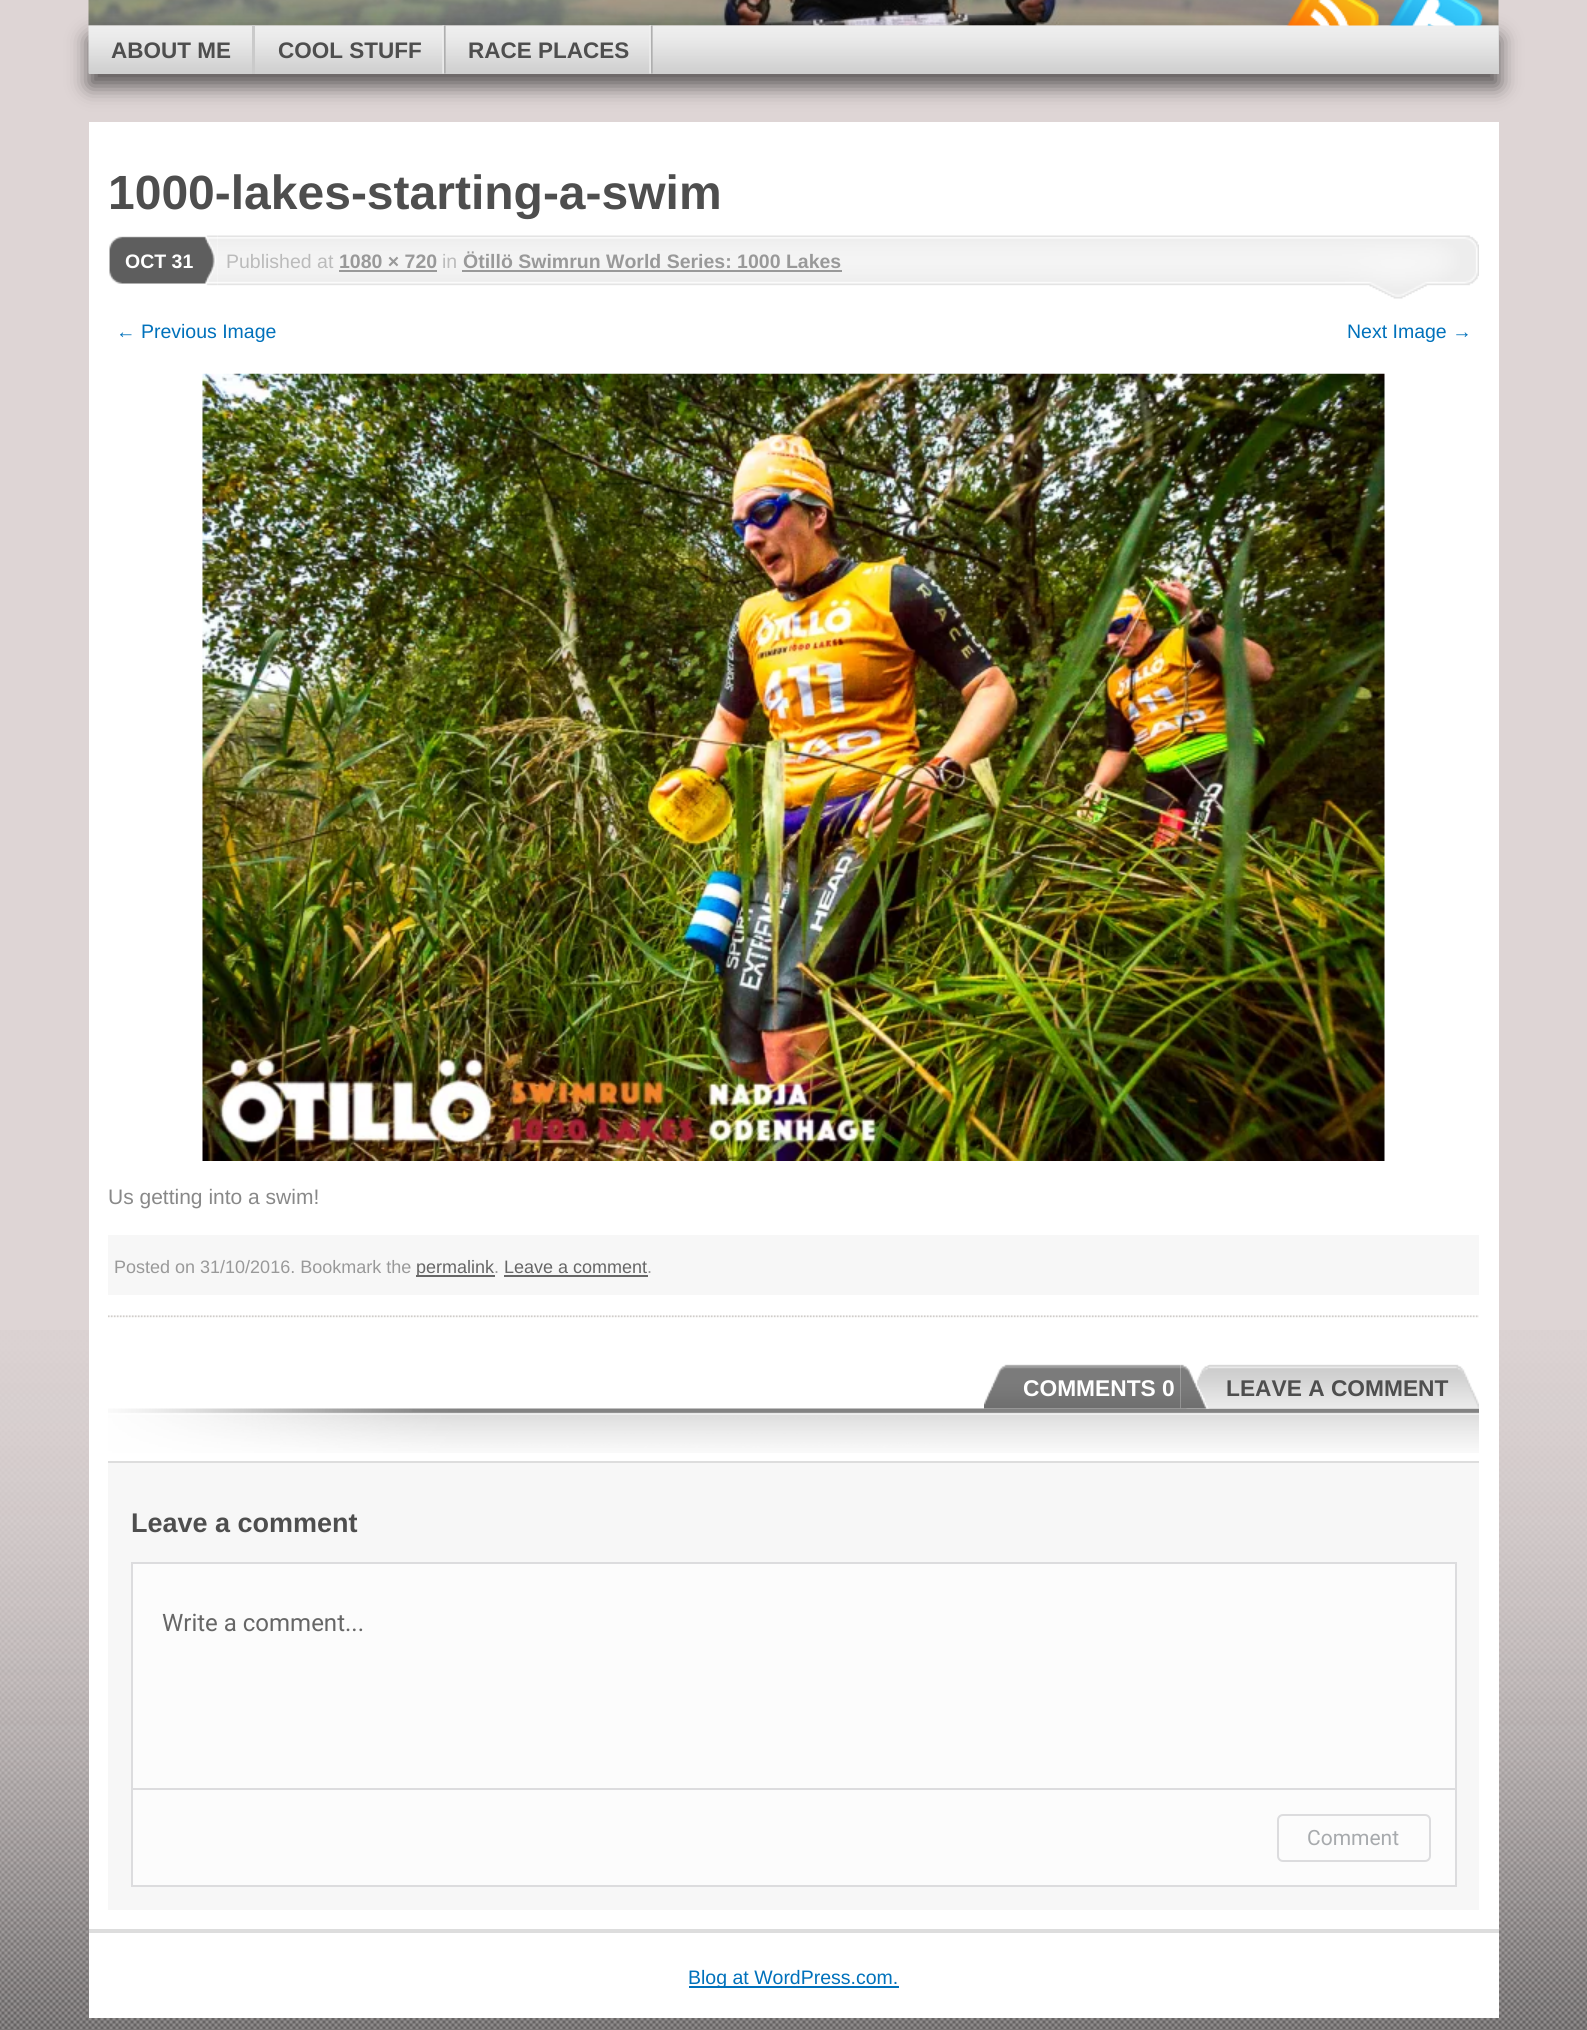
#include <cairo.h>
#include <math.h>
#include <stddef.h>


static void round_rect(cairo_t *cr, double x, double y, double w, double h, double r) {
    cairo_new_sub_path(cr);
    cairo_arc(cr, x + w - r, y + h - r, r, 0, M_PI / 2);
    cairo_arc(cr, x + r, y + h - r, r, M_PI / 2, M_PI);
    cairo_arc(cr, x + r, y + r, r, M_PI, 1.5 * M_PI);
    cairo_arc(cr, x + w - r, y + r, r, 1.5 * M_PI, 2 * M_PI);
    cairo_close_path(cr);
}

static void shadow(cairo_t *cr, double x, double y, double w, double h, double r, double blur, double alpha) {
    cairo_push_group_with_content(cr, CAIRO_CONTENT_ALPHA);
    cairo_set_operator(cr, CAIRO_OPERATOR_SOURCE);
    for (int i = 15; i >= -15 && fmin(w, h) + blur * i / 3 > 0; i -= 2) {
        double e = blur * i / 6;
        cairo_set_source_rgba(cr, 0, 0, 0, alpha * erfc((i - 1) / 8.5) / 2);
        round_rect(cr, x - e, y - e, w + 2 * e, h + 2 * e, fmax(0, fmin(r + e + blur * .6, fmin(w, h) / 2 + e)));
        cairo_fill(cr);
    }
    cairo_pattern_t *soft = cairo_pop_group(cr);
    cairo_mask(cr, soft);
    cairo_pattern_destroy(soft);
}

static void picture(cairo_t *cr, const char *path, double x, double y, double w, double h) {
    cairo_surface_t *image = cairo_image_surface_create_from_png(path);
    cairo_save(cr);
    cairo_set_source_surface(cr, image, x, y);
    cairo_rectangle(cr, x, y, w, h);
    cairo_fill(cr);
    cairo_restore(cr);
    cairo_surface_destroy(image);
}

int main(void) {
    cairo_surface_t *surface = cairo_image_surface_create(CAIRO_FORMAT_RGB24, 1587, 2030);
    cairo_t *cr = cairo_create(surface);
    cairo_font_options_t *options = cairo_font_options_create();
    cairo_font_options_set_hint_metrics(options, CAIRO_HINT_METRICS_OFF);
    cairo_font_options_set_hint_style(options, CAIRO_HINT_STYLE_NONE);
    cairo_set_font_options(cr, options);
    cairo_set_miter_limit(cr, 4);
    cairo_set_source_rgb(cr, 0.871, 0.835, 0.835);
    cairo_paint(cr);
    picture(cr, "img1.png", 0, 1330, 1587, 700);
    picture(cr, "img2.png", 88, 0, 1411, 26);
    cairo_set_source_rgb(cr, 0, 0, 0);
    shadow(cr, 89, 38, 1410, 48, 0, 10.5, 0.6);
    cairo_set_source_rgb(cr, 0.816, 0.816, 0.816);
    cairo_rectangle(cr, 89, 26, 1410, 48);
    cairo_fill(cr);
    picture(cr, "img3.png", 1286, 0, 93, 26);
    picture(cr, "img4.png", 1388, 0, 95, 26);
    picture(cr, "img5.png", 88, 25, 1411, 49);
    cairo_set_source_rgb(cr, 0.792, 0.792, 0.792);
    cairo_rectangle(cr, 252, 25, 3, 49);
    cairo_fill(cr);
    cairo_select_font_face(cr, "Liberation Sans", CAIRO_FONT_SLANT_NORMAL, CAIRO_FONT_WEIGHT_BOLD);
    cairo_set_font_size(cr, 22.5);
    cairo_set_source_rgb(cr, 0.306, 0.306, 0.306);
    cairo_move_to(cr, 111, 58);
    cairo_show_text(cr, "ABOUT ME");
    picture(cr, "img6.png", 442, 25, 4, 49);
    cairo_move_to(cr, 278, 58);
    cairo_show_text(cr, "COOL STUFF");
    picture(cr, "img7.png", 649, 25, 4, 49);
    cairo_move_to(cr, 468, 58);
    cairo_show_text(cr, "RACE PLACES");
    cairo_set_source_rgb(cr, 1, 1, 1);
    cairo_rectangle(cr, 89, 122, 1410, 1807);
    cairo_fill(cr);
    picture(cr, "img8.png", 108, 1315, 1371, 3);
    cairo_set_font_size(cr, 48);
    cairo_set_source_rgb(cr, 0.306, 0.306, 0.306);
    cairo_move_to(cr, 108, 209);
    cairo_show_text(cr, "1000-lakes-starting-a-swim");
    picture(cr, "img9.png", 109, 236, 16, 48);
    picture(cr, "img10.png", 125, 235, 93, 51);
    cairo_set_font_size(cr, 19.5);
    cairo_set_source_rgb(cr, 1, 1, 1);
    cairo_move_to(cr, 125, 268);
    cairo_show_text(cr, "OCT 31");
    picture(cr, "img11.png", 217, 235, 1262, 64);
    cairo_select_font_face(cr, "Liberation Sans", CAIRO_FONT_SLANT_NORMAL, CAIRO_FONT_WEIGHT_NORMAL);
    cairo_set_source_rgb(cr, 0.733, 0.733, 0.733);
    cairo_move_to(cr, 226, 268);
    cairo_show_text(cr, "Published at");
    cairo_select_font_face(cr, "Liberation Sans", CAIRO_FONT_SLANT_NORMAL, CAIRO_FONT_WEIGHT_BOLD);
    cairo_set_source_rgb(cr, 0.6, 0.6, 0.6);
    cairo_move_to(cr, 339, 268);
    cairo_show_text(cr, "1080 × 720");
    cairo_rectangle(cr, 339, 270, 98, 2);
    cairo_fill(cr);
    cairo_select_font_face(cr, "Liberation Sans", CAIRO_FONT_SLANT_NORMAL, CAIRO_FONT_WEIGHT_NORMAL);
    cairo_set_source_rgb(cr, 0.733, 0.733, 0.733);
    cairo_move_to(cr, 442, 268);
    cairo_show_text(cr, "in");
    cairo_select_font_face(cr, "Liberation Sans", CAIRO_FONT_SLANT_NORMAL, CAIRO_FONT_WEIGHT_BOLD);
    cairo_set_source_rgb(cr, 0.6, 0.6, 0.6);
    cairo_move_to(cr, 463, 268);
    cairo_show_text(cr, "Ötillö Swimrun World Series: 1000 Lakes");
    cairo_rectangle(cr, 462, 270, 380, 2);
    cairo_fill(cr);
    cairo_select_font_face(cr, "Liberation Sans", CAIRO_FONT_SLANT_NORMAL, CAIRO_FONT_WEIGHT_NORMAL);
    cairo_set_source_rgb(cr, 0, 0.443, 0.733);
    cairo_move_to(cr, 116, 338);
    cairo_show_text(cr, "← Previous Image");
    cairo_move_to(cr, 1347, 338);
    cairo_show_text(cr, "Next Image →");
    picture(cr, "img12.png", 202, 373, 1183, 788);
    cairo_set_font_size(cr, 21);
    cairo_set_source_rgb(cr, 0.533, 0.533, 0.533);
    cairo_move_to(cr, 108, 1204);
    cairo_show_text(cr, "Us getting into a swim!");
    cairo_set_source_rgb(cr, 0.965, 0.965, 0.965);
    cairo_rectangle(cr, 108, 1235, 1371, 60);
    cairo_fill(cr);
    cairo_set_font_size(cr, 18);
    cairo_set_source_rgb(cr, 0.6, 0.6, 0.6);
    cairo_move_to(cr, 114, 1273);
    cairo_show_text(cr, "Posted on 31/10/2016. Bookmark the");
    cairo_set_source_rgb(cr, 0.4, 0.4, 0.4);
    cairo_rectangle(cr, 416, 1275, 79, 2);
    cairo_fill(cr);
    cairo_move_to(cr, 416, 1273);
    cairo_show_text(cr, "permalink");
    cairo_set_source_rgb(cr, 0.6, 0.6, 0.6);
    cairo_move_to(cr, 494, 1273);
    cairo_show_text(cr, ".");
    cairo_set_source_rgb(cr, 0.4, 0.4, 0.4);
    cairo_move_to(cr, 504, 1273);
    cairo_show_text(cr, "Leave a comment");
    cairo_rectangle(cr, 504, 1275, 144, 2);
    cairo_fill(cr);
    cairo_set_source_rgb(cr, 0.6, 0.6, 0.6);
    cairo_move_to(cr, 647, 1273);
    cairo_show_text(cr, ".");
    picture(cr, "img13.png", 108, 1408, 1371, 45);
    picture(cr, "img17.png", 1186, 1364, 269, 45);
    picture(cr, "img14.png", 1180, 1364, 29, 45);
    picture(cr, "img15.png", 984, 1364, 197, 45);
    cairo_select_font_face(cr, "Liberation Sans", CAIRO_FONT_SLANT_NORMAL, CAIRO_FONT_WEIGHT_BOLD);
    cairo_set_font_size(cr, 22.75);
    cairo_set_source_rgb(cr, 1, 1, 1);
    cairo_move_to(cr, 1023, 1396);
    cairo_show_text(cr, "COMMENTS 0");
    picture(cr, "img16.png", 1455, 1364, 24, 45);
    cairo_set_source_rgb(cr, 0.306, 0.306, 0.306);
    cairo_move_to(cr, 1226, 1396);
    cairo_show_text(cr, "LEAVE A COMMENT");
    cairo_set_source_rgb(cr, 0.965, 0.965, 0.965);
    cairo_rectangle(cr, 108, 1463, 1371, 447);
    cairo_fill(cr);
    cairo_set_source_rgb(cr, 0.867, 0.867, 0.867);
    cairo_rectangle(cr, 108, 1461, 1371, 2);
    cairo_fill(cr);
    cairo_set_font_size(cr, 27);
    cairo_set_source_rgb(cr, 0.306, 0.306, 0.306);
    cairo_move_to(cr, 131, 1532);
    cairo_show_text(cr, "Leave a comment");
    cairo_set_source_rgb(cr, 0.988, 0.988, 0.988);
    cairo_rectangle(cr, 132, 1563, 1324, 323);
    cairo_fill_preserve(cr);
    cairo_set_source_rgb(cr, 0.863, 0.863, 0.871);
    cairo_stroke(cr);
    cairo_select_font_face(cr, "Roboto", CAIRO_FONT_SLANT_NORMAL, CAIRO_FONT_WEIGHT_NORMAL);
    cairo_set_font_size(cr, 24);
    cairo_set_source_rgb(cr, 0.4, 0.4, 0.4);
    cairo_move_to(cr, 162, 1631);
    cairo_show_text(cr, "Write a comment...");
    cairo_set_source_rgb(cr, 0.863, 0.863, 0.871);
    cairo_rectangle(cr, 132, 1788, 1323, 2);
    cairo_fill(cr);
    round_rect(cr, 1278, 1815, 152, 46, 5);
    cairo_stroke(cr);
    cairo_set_font_size(cr, 21);
    cairo_set_source_rgb(cr, 0.655, 0.667, 0.678);
    cairo_move_to(cr, 1307, 1845);
    cairo_show_text(cr, "Comment");
    cairo_set_source_rgb(cr, 1, 1, 1);
    cairo_rectangle(cr, 89, 1933, 1410, 85);
    cairo_fill(cr);
    cairo_set_source_rgb(cr, 0.867, 0.867, 0.867);
    cairo_rectangle(cr, 89, 1929, 1410, 4);
    cairo_fill(cr);
    cairo_set_source_rgb(cr, 0, 0.443, 0.733);
    cairo_rectangle(cr, 689, 1986, 210, 2);
    cairo_fill(cr);
    cairo_select_font_face(cr, "Liberation Sans", CAIRO_FONT_SLANT_NORMAL, CAIRO_FONT_WEIGHT_NORMAL);
    cairo_set_font_size(cr, 19.5);
    cairo_move_to(cr, 688, 1984);
    cairo_show_text(cr, "Blog at WordPress.com.");
    cairo_surface_write_to_png(surface, "page.png");
    cairo_font_options_destroy(options);
    cairo_destroy(cr);
    cairo_surface_destroy(surface);
    return 0;
}
